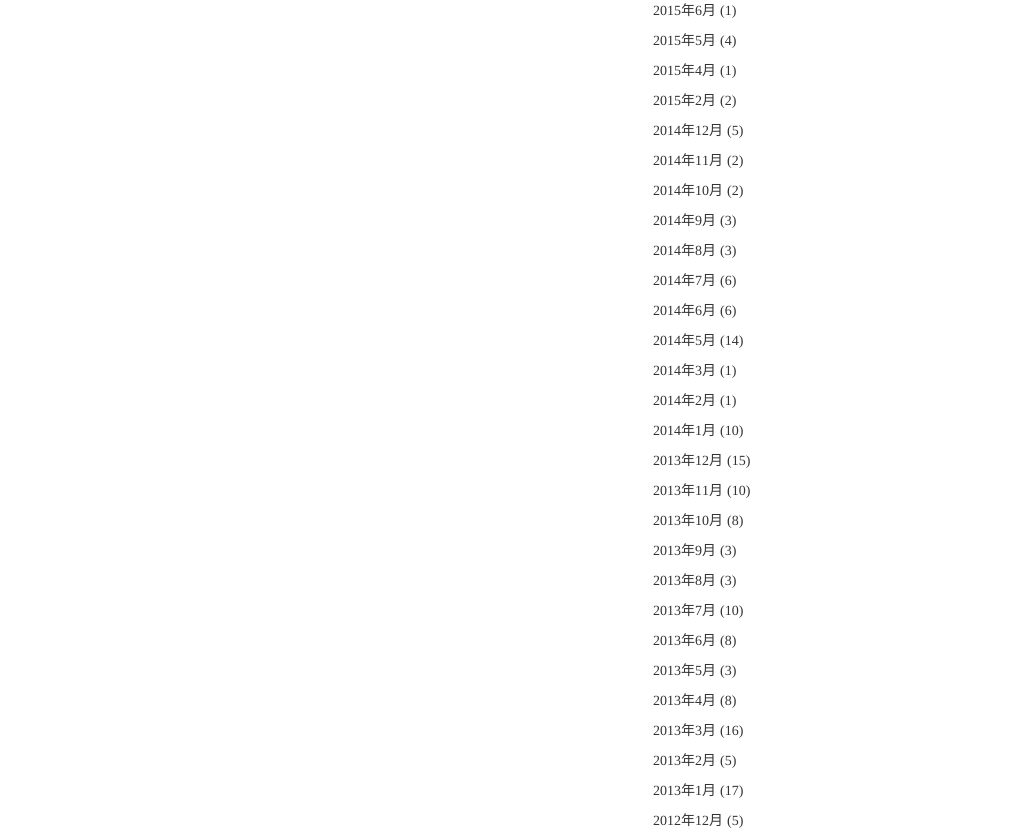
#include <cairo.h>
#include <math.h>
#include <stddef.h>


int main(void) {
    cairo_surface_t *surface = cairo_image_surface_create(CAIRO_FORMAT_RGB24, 1017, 839);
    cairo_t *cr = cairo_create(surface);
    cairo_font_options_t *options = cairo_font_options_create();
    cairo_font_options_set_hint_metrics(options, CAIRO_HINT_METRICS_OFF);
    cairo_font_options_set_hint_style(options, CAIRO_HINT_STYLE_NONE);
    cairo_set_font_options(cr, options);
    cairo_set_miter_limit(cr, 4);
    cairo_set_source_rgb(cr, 1, 1, 1);
    cairo_paint(cr);
    cairo_select_font_face(cr, "Liberation Serif", CAIRO_FONT_SLANT_NORMAL, CAIRO_FONT_WEIGHT_NORMAL);
    cairo_set_font_size(cr, 14);
    cairo_set_source_rgb(cr, 0.2, 0.2, 0.2);
    cairo_move_to(cr, 653, 15);
    cairo_show_text(cr, "2015");
    cairo_select_font_face(cr, "Noto Sans CJK SC", CAIRO_FONT_SLANT_NORMAL, CAIRO_FONT_WEIGHT_NORMAL);
    cairo_move_to(cr, 681, 15);
    cairo_show_text(cr, "年");
    cairo_select_font_face(cr, "Liberation Serif", CAIRO_FONT_SLANT_NORMAL, CAIRO_FONT_WEIGHT_NORMAL);
    cairo_move_to(cr, 695, 15);
    cairo_show_text(cr, "6");
    cairo_select_font_face(cr, "Noto Sans CJK SC", CAIRO_FONT_SLANT_NORMAL, CAIRO_FONT_WEIGHT_NORMAL);
    cairo_move_to(cr, 702, 15);
    cairo_show_text(cr, "月");
    cairo_select_font_face(cr, "Liberation Serif", CAIRO_FONT_SLANT_NORMAL, CAIRO_FONT_WEIGHT_NORMAL);
    cairo_move_to(cr, 720, 15);
    cairo_show_text(cr, "(1)");
    cairo_move_to(cr, 653, 45);
    cairo_show_text(cr, "2015");
    cairo_select_font_face(cr, "Noto Sans CJK SC", CAIRO_FONT_SLANT_NORMAL, CAIRO_FONT_WEIGHT_NORMAL);
    cairo_move_to(cr, 681, 45);
    cairo_show_text(cr, "年");
    cairo_select_font_face(cr, "Liberation Serif", CAIRO_FONT_SLANT_NORMAL, CAIRO_FONT_WEIGHT_NORMAL);
    cairo_move_to(cr, 695, 45);
    cairo_show_text(cr, "5");
    cairo_select_font_face(cr, "Noto Sans CJK SC", CAIRO_FONT_SLANT_NORMAL, CAIRO_FONT_WEIGHT_NORMAL);
    cairo_move_to(cr, 702, 45);
    cairo_show_text(cr, "月");
    cairo_select_font_face(cr, "Liberation Serif", CAIRO_FONT_SLANT_NORMAL, CAIRO_FONT_WEIGHT_NORMAL);
    cairo_move_to(cr, 720, 45);
    cairo_show_text(cr, "(4)");
    cairo_move_to(cr, 653, 75);
    cairo_show_text(cr, "2015");
    cairo_select_font_face(cr, "Noto Sans CJK SC", CAIRO_FONT_SLANT_NORMAL, CAIRO_FONT_WEIGHT_NORMAL);
    cairo_move_to(cr, 681, 75);
    cairo_show_text(cr, "年");
    cairo_select_font_face(cr, "Liberation Serif", CAIRO_FONT_SLANT_NORMAL, CAIRO_FONT_WEIGHT_NORMAL);
    cairo_move_to(cr, 695, 75);
    cairo_show_text(cr, "4");
    cairo_select_font_face(cr, "Noto Sans CJK SC", CAIRO_FONT_SLANT_NORMAL, CAIRO_FONT_WEIGHT_NORMAL);
    cairo_move_to(cr, 702, 75);
    cairo_show_text(cr, "月");
    cairo_select_font_face(cr, "Liberation Serif", CAIRO_FONT_SLANT_NORMAL, CAIRO_FONT_WEIGHT_NORMAL);
    cairo_move_to(cr, 720, 75);
    cairo_show_text(cr, "(1)");
    cairo_move_to(cr, 653, 105);
    cairo_show_text(cr, "2015");
    cairo_select_font_face(cr, "Noto Sans CJK SC", CAIRO_FONT_SLANT_NORMAL, CAIRO_FONT_WEIGHT_NORMAL);
    cairo_move_to(cr, 681, 105);
    cairo_show_text(cr, "年");
    cairo_select_font_face(cr, "Liberation Serif", CAIRO_FONT_SLANT_NORMAL, CAIRO_FONT_WEIGHT_NORMAL);
    cairo_move_to(cr, 695, 105);
    cairo_show_text(cr, "2");
    cairo_select_font_face(cr, "Noto Sans CJK SC", CAIRO_FONT_SLANT_NORMAL, CAIRO_FONT_WEIGHT_NORMAL);
    cairo_move_to(cr, 702, 105);
    cairo_show_text(cr, "月");
    cairo_select_font_face(cr, "Liberation Serif", CAIRO_FONT_SLANT_NORMAL, CAIRO_FONT_WEIGHT_NORMAL);
    cairo_move_to(cr, 720, 105);
    cairo_show_text(cr, "(2)");
    cairo_move_to(cr, 653, 135);
    cairo_show_text(cr, "2014");
    cairo_select_font_face(cr, "Noto Sans CJK SC", CAIRO_FONT_SLANT_NORMAL, CAIRO_FONT_WEIGHT_NORMAL);
    cairo_move_to(cr, 681, 135);
    cairo_show_text(cr, "年");
    cairo_select_font_face(cr, "Liberation Serif", CAIRO_FONT_SLANT_NORMAL, CAIRO_FONT_WEIGHT_NORMAL);
    cairo_move_to(cr, 695, 135);
    cairo_show_text(cr, "12");
    cairo_select_font_face(cr, "Noto Sans CJK SC", CAIRO_FONT_SLANT_NORMAL, CAIRO_FONT_WEIGHT_NORMAL);
    cairo_move_to(cr, 709, 135);
    cairo_show_text(cr, "月");
    cairo_select_font_face(cr, "Liberation Serif", CAIRO_FONT_SLANT_NORMAL, CAIRO_FONT_WEIGHT_NORMAL);
    cairo_move_to(cr, 727, 135);
    cairo_show_text(cr, "(5)");
    cairo_move_to(cr, 653, 165);
    cairo_show_text(cr, "2014");
    cairo_select_font_face(cr, "Noto Sans CJK SC", CAIRO_FONT_SLANT_NORMAL, CAIRO_FONT_WEIGHT_NORMAL);
    cairo_move_to(cr, 681, 165);
    cairo_show_text(cr, "年");
    cairo_select_font_face(cr, "Liberation Serif", CAIRO_FONT_SLANT_NORMAL, CAIRO_FONT_WEIGHT_NORMAL);
    cairo_move_to(cr, 695, 165);
    cairo_show_text(cr, "11");
    cairo_select_font_face(cr, "Noto Sans CJK SC", CAIRO_FONT_SLANT_NORMAL, CAIRO_FONT_WEIGHT_NORMAL);
    cairo_move_to(cr, 709, 165);
    cairo_show_text(cr, "月");
    cairo_select_font_face(cr, "Liberation Serif", CAIRO_FONT_SLANT_NORMAL, CAIRO_FONT_WEIGHT_NORMAL);
    cairo_move_to(cr, 727, 165);
    cairo_show_text(cr, "(2)");
    cairo_move_to(cr, 653, 195);
    cairo_show_text(cr, "2014");
    cairo_select_font_face(cr, "Noto Sans CJK SC", CAIRO_FONT_SLANT_NORMAL, CAIRO_FONT_WEIGHT_NORMAL);
    cairo_move_to(cr, 681, 195);
    cairo_show_text(cr, "年");
    cairo_select_font_face(cr, "Liberation Serif", CAIRO_FONT_SLANT_NORMAL, CAIRO_FONT_WEIGHT_NORMAL);
    cairo_move_to(cr, 695, 195);
    cairo_show_text(cr, "10");
    cairo_select_font_face(cr, "Noto Sans CJK SC", CAIRO_FONT_SLANT_NORMAL, CAIRO_FONT_WEIGHT_NORMAL);
    cairo_move_to(cr, 709, 195);
    cairo_show_text(cr, "月");
    cairo_select_font_face(cr, "Liberation Serif", CAIRO_FONT_SLANT_NORMAL, CAIRO_FONT_WEIGHT_NORMAL);
    cairo_move_to(cr, 727, 195);
    cairo_show_text(cr, "(2)");
    cairo_move_to(cr, 653, 225);
    cairo_show_text(cr, "2014");
    cairo_select_font_face(cr, "Noto Sans CJK SC", CAIRO_FONT_SLANT_NORMAL, CAIRO_FONT_WEIGHT_NORMAL);
    cairo_move_to(cr, 681, 225);
    cairo_show_text(cr, "年");
    cairo_select_font_face(cr, "Liberation Serif", CAIRO_FONT_SLANT_NORMAL, CAIRO_FONT_WEIGHT_NORMAL);
    cairo_move_to(cr, 695, 225);
    cairo_show_text(cr, "9");
    cairo_select_font_face(cr, "Noto Sans CJK SC", CAIRO_FONT_SLANT_NORMAL, CAIRO_FONT_WEIGHT_NORMAL);
    cairo_move_to(cr, 702, 225);
    cairo_show_text(cr, "月");
    cairo_select_font_face(cr, "Liberation Serif", CAIRO_FONT_SLANT_NORMAL, CAIRO_FONT_WEIGHT_NORMAL);
    cairo_move_to(cr, 720, 225);
    cairo_show_text(cr, "(3)");
    cairo_move_to(cr, 653, 255);
    cairo_show_text(cr, "2014");
    cairo_select_font_face(cr, "Noto Sans CJK SC", CAIRO_FONT_SLANT_NORMAL, CAIRO_FONT_WEIGHT_NORMAL);
    cairo_move_to(cr, 681, 255);
    cairo_show_text(cr, "年");
    cairo_select_font_face(cr, "Liberation Serif", CAIRO_FONT_SLANT_NORMAL, CAIRO_FONT_WEIGHT_NORMAL);
    cairo_move_to(cr, 695, 255);
    cairo_show_text(cr, "8");
    cairo_select_font_face(cr, "Noto Sans CJK SC", CAIRO_FONT_SLANT_NORMAL, CAIRO_FONT_WEIGHT_NORMAL);
    cairo_move_to(cr, 702, 255);
    cairo_show_text(cr, "月");
    cairo_select_font_face(cr, "Liberation Serif", CAIRO_FONT_SLANT_NORMAL, CAIRO_FONT_WEIGHT_NORMAL);
    cairo_move_to(cr, 720, 255);
    cairo_show_text(cr, "(3)");
    cairo_move_to(cr, 653, 285);
    cairo_show_text(cr, "2014");
    cairo_select_font_face(cr, "Noto Sans CJK SC", CAIRO_FONT_SLANT_NORMAL, CAIRO_FONT_WEIGHT_NORMAL);
    cairo_move_to(cr, 681, 285);
    cairo_show_text(cr, "年");
    cairo_select_font_face(cr, "Liberation Serif", CAIRO_FONT_SLANT_NORMAL, CAIRO_FONT_WEIGHT_NORMAL);
    cairo_move_to(cr, 695, 285);
    cairo_show_text(cr, "7");
    cairo_select_font_face(cr, "Noto Sans CJK SC", CAIRO_FONT_SLANT_NORMAL, CAIRO_FONT_WEIGHT_NORMAL);
    cairo_move_to(cr, 702, 285);
    cairo_show_text(cr, "月");
    cairo_select_font_face(cr, "Liberation Serif", CAIRO_FONT_SLANT_NORMAL, CAIRO_FONT_WEIGHT_NORMAL);
    cairo_move_to(cr, 720, 285);
    cairo_show_text(cr, "(6)");
    cairo_move_to(cr, 653, 315);
    cairo_show_text(cr, "2014");
    cairo_select_font_face(cr, "Noto Sans CJK SC", CAIRO_FONT_SLANT_NORMAL, CAIRO_FONT_WEIGHT_NORMAL);
    cairo_move_to(cr, 681, 315);
    cairo_show_text(cr, "年");
    cairo_select_font_face(cr, "Liberation Serif", CAIRO_FONT_SLANT_NORMAL, CAIRO_FONT_WEIGHT_NORMAL);
    cairo_move_to(cr, 695, 315);
    cairo_show_text(cr, "6");
    cairo_select_font_face(cr, "Noto Sans CJK SC", CAIRO_FONT_SLANT_NORMAL, CAIRO_FONT_WEIGHT_NORMAL);
    cairo_move_to(cr, 702, 315);
    cairo_show_text(cr, "月");
    cairo_select_font_face(cr, "Liberation Serif", CAIRO_FONT_SLANT_NORMAL, CAIRO_FONT_WEIGHT_NORMAL);
    cairo_move_to(cr, 720, 315);
    cairo_show_text(cr, "(6)");
    cairo_move_to(cr, 653, 345);
    cairo_show_text(cr, "2014");
    cairo_select_font_face(cr, "Noto Sans CJK SC", CAIRO_FONT_SLANT_NORMAL, CAIRO_FONT_WEIGHT_NORMAL);
    cairo_move_to(cr, 681, 345);
    cairo_show_text(cr, "年");
    cairo_select_font_face(cr, "Liberation Serif", CAIRO_FONT_SLANT_NORMAL, CAIRO_FONT_WEIGHT_NORMAL);
    cairo_move_to(cr, 695, 345);
    cairo_show_text(cr, "5");
    cairo_select_font_face(cr, "Noto Sans CJK SC", CAIRO_FONT_SLANT_NORMAL, CAIRO_FONT_WEIGHT_NORMAL);
    cairo_move_to(cr, 702, 345);
    cairo_show_text(cr, "月");
    cairo_select_font_face(cr, "Liberation Serif", CAIRO_FONT_SLANT_NORMAL, CAIRO_FONT_WEIGHT_NORMAL);
    cairo_move_to(cr, 720, 345);
    cairo_show_text(cr, "(14)");
    cairo_move_to(cr, 653, 375);
    cairo_show_text(cr, "2014");
    cairo_select_font_face(cr, "Noto Sans CJK SC", CAIRO_FONT_SLANT_NORMAL, CAIRO_FONT_WEIGHT_NORMAL);
    cairo_move_to(cr, 681, 375);
    cairo_show_text(cr, "年");
    cairo_select_font_face(cr, "Liberation Serif", CAIRO_FONT_SLANT_NORMAL, CAIRO_FONT_WEIGHT_NORMAL);
    cairo_move_to(cr, 695, 375);
    cairo_show_text(cr, "3");
    cairo_select_font_face(cr, "Noto Sans CJK SC", CAIRO_FONT_SLANT_NORMAL, CAIRO_FONT_WEIGHT_NORMAL);
    cairo_move_to(cr, 702, 375);
    cairo_show_text(cr, "月");
    cairo_select_font_face(cr, "Liberation Serif", CAIRO_FONT_SLANT_NORMAL, CAIRO_FONT_WEIGHT_NORMAL);
    cairo_move_to(cr, 720, 375);
    cairo_show_text(cr, "(1)");
    cairo_move_to(cr, 653, 405);
    cairo_show_text(cr, "2014");
    cairo_select_font_face(cr, "Noto Sans CJK SC", CAIRO_FONT_SLANT_NORMAL, CAIRO_FONT_WEIGHT_NORMAL);
    cairo_move_to(cr, 681, 405);
    cairo_show_text(cr, "年");
    cairo_select_font_face(cr, "Liberation Serif", CAIRO_FONT_SLANT_NORMAL, CAIRO_FONT_WEIGHT_NORMAL);
    cairo_move_to(cr, 695, 405);
    cairo_show_text(cr, "2");
    cairo_select_font_face(cr, "Noto Sans CJK SC", CAIRO_FONT_SLANT_NORMAL, CAIRO_FONT_WEIGHT_NORMAL);
    cairo_move_to(cr, 702, 405);
    cairo_show_text(cr, "月");
    cairo_select_font_face(cr, "Liberation Serif", CAIRO_FONT_SLANT_NORMAL, CAIRO_FONT_WEIGHT_NORMAL);
    cairo_move_to(cr, 720, 405);
    cairo_show_text(cr, "(1)");
    cairo_move_to(cr, 653, 435);
    cairo_show_text(cr, "2014");
    cairo_select_font_face(cr, "Noto Sans CJK SC", CAIRO_FONT_SLANT_NORMAL, CAIRO_FONT_WEIGHT_NORMAL);
    cairo_move_to(cr, 681, 435);
    cairo_show_text(cr, "年");
    cairo_select_font_face(cr, "Liberation Serif", CAIRO_FONT_SLANT_NORMAL, CAIRO_FONT_WEIGHT_NORMAL);
    cairo_move_to(cr, 695, 435);
    cairo_show_text(cr, "1");
    cairo_select_font_face(cr, "Noto Sans CJK SC", CAIRO_FONT_SLANT_NORMAL, CAIRO_FONT_WEIGHT_NORMAL);
    cairo_move_to(cr, 702, 435);
    cairo_show_text(cr, "月");
    cairo_select_font_face(cr, "Liberation Serif", CAIRO_FONT_SLANT_NORMAL, CAIRO_FONT_WEIGHT_NORMAL);
    cairo_move_to(cr, 720, 435);
    cairo_show_text(cr, "(10)");
    cairo_move_to(cr, 653, 465);
    cairo_show_text(cr, "2013");
    cairo_select_font_face(cr, "Noto Sans CJK SC", CAIRO_FONT_SLANT_NORMAL, CAIRO_FONT_WEIGHT_NORMAL);
    cairo_move_to(cr, 681, 465);
    cairo_show_text(cr, "年");
    cairo_select_font_face(cr, "Liberation Serif", CAIRO_FONT_SLANT_NORMAL, CAIRO_FONT_WEIGHT_NORMAL);
    cairo_move_to(cr, 695, 465);
    cairo_show_text(cr, "12");
    cairo_select_font_face(cr, "Noto Sans CJK SC", CAIRO_FONT_SLANT_NORMAL, CAIRO_FONT_WEIGHT_NORMAL);
    cairo_move_to(cr, 709, 465);
    cairo_show_text(cr, "月");
    cairo_select_font_face(cr, "Liberation Serif", CAIRO_FONT_SLANT_NORMAL, CAIRO_FONT_WEIGHT_NORMAL);
    cairo_move_to(cr, 727, 465);
    cairo_show_text(cr, "(15)");
    cairo_move_to(cr, 653, 495);
    cairo_show_text(cr, "2013");
    cairo_select_font_face(cr, "Noto Sans CJK SC", CAIRO_FONT_SLANT_NORMAL, CAIRO_FONT_WEIGHT_NORMAL);
    cairo_move_to(cr, 681, 495);
    cairo_show_text(cr, "年");
    cairo_select_font_face(cr, "Liberation Serif", CAIRO_FONT_SLANT_NORMAL, CAIRO_FONT_WEIGHT_NORMAL);
    cairo_move_to(cr, 695, 495);
    cairo_show_text(cr, "11");
    cairo_select_font_face(cr, "Noto Sans CJK SC", CAIRO_FONT_SLANT_NORMAL, CAIRO_FONT_WEIGHT_NORMAL);
    cairo_move_to(cr, 709, 495);
    cairo_show_text(cr, "月");
    cairo_select_font_face(cr, "Liberation Serif", CAIRO_FONT_SLANT_NORMAL, CAIRO_FONT_WEIGHT_NORMAL);
    cairo_move_to(cr, 727, 495);
    cairo_show_text(cr, "(10)");
    cairo_move_to(cr, 653, 525);
    cairo_show_text(cr, "2013");
    cairo_select_font_face(cr, "Noto Sans CJK SC", CAIRO_FONT_SLANT_NORMAL, CAIRO_FONT_WEIGHT_NORMAL);
    cairo_move_to(cr, 681, 525);
    cairo_show_text(cr, "年");
    cairo_select_font_face(cr, "Liberation Serif", CAIRO_FONT_SLANT_NORMAL, CAIRO_FONT_WEIGHT_NORMAL);
    cairo_move_to(cr, 695, 525);
    cairo_show_text(cr, "10");
    cairo_select_font_face(cr, "Noto Sans CJK SC", CAIRO_FONT_SLANT_NORMAL, CAIRO_FONT_WEIGHT_NORMAL);
    cairo_move_to(cr, 709, 525);
    cairo_show_text(cr, "月");
    cairo_select_font_face(cr, "Liberation Serif", CAIRO_FONT_SLANT_NORMAL, CAIRO_FONT_WEIGHT_NORMAL);
    cairo_move_to(cr, 727, 525);
    cairo_show_text(cr, "(8)");
    cairo_move_to(cr, 653, 555);
    cairo_show_text(cr, "2013");
    cairo_select_font_face(cr, "Noto Sans CJK SC", CAIRO_FONT_SLANT_NORMAL, CAIRO_FONT_WEIGHT_NORMAL);
    cairo_move_to(cr, 681, 555);
    cairo_show_text(cr, "年");
    cairo_select_font_face(cr, "Liberation Serif", CAIRO_FONT_SLANT_NORMAL, CAIRO_FONT_WEIGHT_NORMAL);
    cairo_move_to(cr, 695, 555);
    cairo_show_text(cr, "9");
    cairo_select_font_face(cr, "Noto Sans CJK SC", CAIRO_FONT_SLANT_NORMAL, CAIRO_FONT_WEIGHT_NORMAL);
    cairo_move_to(cr, 702, 555);
    cairo_show_text(cr, "月");
    cairo_select_font_face(cr, "Liberation Serif", CAIRO_FONT_SLANT_NORMAL, CAIRO_FONT_WEIGHT_NORMAL);
    cairo_move_to(cr, 720, 555);
    cairo_show_text(cr, "(3)");
    cairo_move_to(cr, 653, 585);
    cairo_show_text(cr, "2013");
    cairo_select_font_face(cr, "Noto Sans CJK SC", CAIRO_FONT_SLANT_NORMAL, CAIRO_FONT_WEIGHT_NORMAL);
    cairo_move_to(cr, 681, 585);
    cairo_show_text(cr, "年");
    cairo_select_font_face(cr, "Liberation Serif", CAIRO_FONT_SLANT_NORMAL, CAIRO_FONT_WEIGHT_NORMAL);
    cairo_move_to(cr, 695, 585);
    cairo_show_text(cr, "8");
    cairo_select_font_face(cr, "Noto Sans CJK SC", CAIRO_FONT_SLANT_NORMAL, CAIRO_FONT_WEIGHT_NORMAL);
    cairo_move_to(cr, 702, 585);
    cairo_show_text(cr, "月");
    cairo_select_font_face(cr, "Liberation Serif", CAIRO_FONT_SLANT_NORMAL, CAIRO_FONT_WEIGHT_NORMAL);
    cairo_move_to(cr, 720, 585);
    cairo_show_text(cr, "(3)");
    cairo_move_to(cr, 653, 615);
    cairo_show_text(cr, "2013");
    cairo_select_font_face(cr, "Noto Sans CJK SC", CAIRO_FONT_SLANT_NORMAL, CAIRO_FONT_WEIGHT_NORMAL);
    cairo_move_to(cr, 681, 615);
    cairo_show_text(cr, "年");
    cairo_select_font_face(cr, "Liberation Serif", CAIRO_FONT_SLANT_NORMAL, CAIRO_FONT_WEIGHT_NORMAL);
    cairo_move_to(cr, 695, 615);
    cairo_show_text(cr, "7");
    cairo_select_font_face(cr, "Noto Sans CJK SC", CAIRO_FONT_SLANT_NORMAL, CAIRO_FONT_WEIGHT_NORMAL);
    cairo_move_to(cr, 702, 615);
    cairo_show_text(cr, "月");
    cairo_select_font_face(cr, "Liberation Serif", CAIRO_FONT_SLANT_NORMAL, CAIRO_FONT_WEIGHT_NORMAL);
    cairo_move_to(cr, 720, 615);
    cairo_show_text(cr, "(10)");
    cairo_move_to(cr, 653, 645);
    cairo_show_text(cr, "2013");
    cairo_select_font_face(cr, "Noto Sans CJK SC", CAIRO_FONT_SLANT_NORMAL, CAIRO_FONT_WEIGHT_NORMAL);
    cairo_move_to(cr, 681, 645);
    cairo_show_text(cr, "年");
    cairo_select_font_face(cr, "Liberation Serif", CAIRO_FONT_SLANT_NORMAL, CAIRO_FONT_WEIGHT_NORMAL);
    cairo_move_to(cr, 695, 645);
    cairo_show_text(cr, "6");
    cairo_select_font_face(cr, "Noto Sans CJK SC", CAIRO_FONT_SLANT_NORMAL, CAIRO_FONT_WEIGHT_NORMAL);
    cairo_move_to(cr, 702, 645);
    cairo_show_text(cr, "月");
    cairo_select_font_face(cr, "Liberation Serif", CAIRO_FONT_SLANT_NORMAL, CAIRO_FONT_WEIGHT_NORMAL);
    cairo_move_to(cr, 720, 645);
    cairo_show_text(cr, "(8)");
    cairo_move_to(cr, 653, 675);
    cairo_show_text(cr, "2013");
    cairo_select_font_face(cr, "Noto Sans CJK SC", CAIRO_FONT_SLANT_NORMAL, CAIRO_FONT_WEIGHT_NORMAL);
    cairo_move_to(cr, 681, 675);
    cairo_show_text(cr, "年");
    cairo_select_font_face(cr, "Liberation Serif", CAIRO_FONT_SLANT_NORMAL, CAIRO_FONT_WEIGHT_NORMAL);
    cairo_move_to(cr, 695, 675);
    cairo_show_text(cr, "5");
    cairo_select_font_face(cr, "Noto Sans CJK SC", CAIRO_FONT_SLANT_NORMAL, CAIRO_FONT_WEIGHT_NORMAL);
    cairo_move_to(cr, 702, 675);
    cairo_show_text(cr, "月");
    cairo_select_font_face(cr, "Liberation Serif", CAIRO_FONT_SLANT_NORMAL, CAIRO_FONT_WEIGHT_NORMAL);
    cairo_move_to(cr, 720, 675);
    cairo_show_text(cr, "(3)");
    cairo_move_to(cr, 653, 705);
    cairo_show_text(cr, "2013");
    cairo_select_font_face(cr, "Noto Sans CJK SC", CAIRO_FONT_SLANT_NORMAL, CAIRO_FONT_WEIGHT_NORMAL);
    cairo_move_to(cr, 681, 705);
    cairo_show_text(cr, "年");
    cairo_select_font_face(cr, "Liberation Serif", CAIRO_FONT_SLANT_NORMAL, CAIRO_FONT_WEIGHT_NORMAL);
    cairo_move_to(cr, 695, 705);
    cairo_show_text(cr, "4");
    cairo_select_font_face(cr, "Noto Sans CJK SC", CAIRO_FONT_SLANT_NORMAL, CAIRO_FONT_WEIGHT_NORMAL);
    cairo_move_to(cr, 702, 705);
    cairo_show_text(cr, "月");
    cairo_select_font_face(cr, "Liberation Serif", CAIRO_FONT_SLANT_NORMAL, CAIRO_FONT_WEIGHT_NORMAL);
    cairo_move_to(cr, 720, 705);
    cairo_show_text(cr, "(8)");
    cairo_move_to(cr, 653, 735);
    cairo_show_text(cr, "2013");
    cairo_select_font_face(cr, "Noto Sans CJK SC", CAIRO_FONT_SLANT_NORMAL, CAIRO_FONT_WEIGHT_NORMAL);
    cairo_move_to(cr, 681, 735);
    cairo_show_text(cr, "年");
    cairo_select_font_face(cr, "Liberation Serif", CAIRO_FONT_SLANT_NORMAL, CAIRO_FONT_WEIGHT_NORMAL);
    cairo_move_to(cr, 695, 735);
    cairo_show_text(cr, "3");
    cairo_select_font_face(cr, "Noto Sans CJK SC", CAIRO_FONT_SLANT_NORMAL, CAIRO_FONT_WEIGHT_NORMAL);
    cairo_move_to(cr, 702, 735);
    cairo_show_text(cr, "月");
    cairo_select_font_face(cr, "Liberation Serif", CAIRO_FONT_SLANT_NORMAL, CAIRO_FONT_WEIGHT_NORMAL);
    cairo_move_to(cr, 720, 735);
    cairo_show_text(cr, "(16)");
    cairo_move_to(cr, 653, 765);
    cairo_show_text(cr, "2013");
    cairo_select_font_face(cr, "Noto Sans CJK SC", CAIRO_FONT_SLANT_NORMAL, CAIRO_FONT_WEIGHT_NORMAL);
    cairo_move_to(cr, 681, 765);
    cairo_show_text(cr, "年");
    cairo_select_font_face(cr, "Liberation Serif", CAIRO_FONT_SLANT_NORMAL, CAIRO_FONT_WEIGHT_NORMAL);
    cairo_move_to(cr, 695, 765);
    cairo_show_text(cr, "2");
    cairo_select_font_face(cr, "Noto Sans CJK SC", CAIRO_FONT_SLANT_NORMAL, CAIRO_FONT_WEIGHT_NORMAL);
    cairo_move_to(cr, 702, 765);
    cairo_show_text(cr, "月");
    cairo_select_font_face(cr, "Liberation Serif", CAIRO_FONT_SLANT_NORMAL, CAIRO_FONT_WEIGHT_NORMAL);
    cairo_move_to(cr, 720, 765);
    cairo_show_text(cr, "(5)");
    cairo_move_to(cr, 653, 795);
    cairo_show_text(cr, "2013");
    cairo_select_font_face(cr, "Noto Sans CJK SC", CAIRO_FONT_SLANT_NORMAL, CAIRO_FONT_WEIGHT_NORMAL);
    cairo_move_to(cr, 681, 795);
    cairo_show_text(cr, "年");
    cairo_select_font_face(cr, "Liberation Serif", CAIRO_FONT_SLANT_NORMAL, CAIRO_FONT_WEIGHT_NORMAL);
    cairo_move_to(cr, 695, 795);
    cairo_show_text(cr, "1");
    cairo_select_font_face(cr, "Noto Sans CJK SC", CAIRO_FONT_SLANT_NORMAL, CAIRO_FONT_WEIGHT_NORMAL);
    cairo_move_to(cr, 702, 795);
    cairo_show_text(cr, "月");
    cairo_select_font_face(cr, "Liberation Serif", CAIRO_FONT_SLANT_NORMAL, CAIRO_FONT_WEIGHT_NORMAL);
    cairo_move_to(cr, 720, 795);
    cairo_show_text(cr, "(17)");
    cairo_move_to(cr, 653, 825);
    cairo_show_text(cr, "2012");
    cairo_select_font_face(cr, "Noto Sans CJK SC", CAIRO_FONT_SLANT_NORMAL, CAIRO_FONT_WEIGHT_NORMAL);
    cairo_move_to(cr, 681, 825);
    cairo_show_text(cr, "年");
    cairo_select_font_face(cr, "Liberation Serif", CAIRO_FONT_SLANT_NORMAL, CAIRO_FONT_WEIGHT_NORMAL);
    cairo_move_to(cr, 695, 825);
    cairo_show_text(cr, "12");
    cairo_select_font_face(cr, "Noto Sans CJK SC", CAIRO_FONT_SLANT_NORMAL, CAIRO_FONT_WEIGHT_NORMAL);
    cairo_move_to(cr, 709, 825);
    cairo_show_text(cr, "月");
    cairo_select_font_face(cr, "Liberation Serif", CAIRO_FONT_SLANT_NORMAL, CAIRO_FONT_WEIGHT_NORMAL);
    cairo_move_to(cr, 727, 825);
    cairo_show_text(cr, "(5)");
    cairo_surface_write_to_png(surface, "page.png");
    cairo_font_options_destroy(options);
    cairo_destroy(cr);
    cairo_surface_destroy(surface);
    return 0;
}
